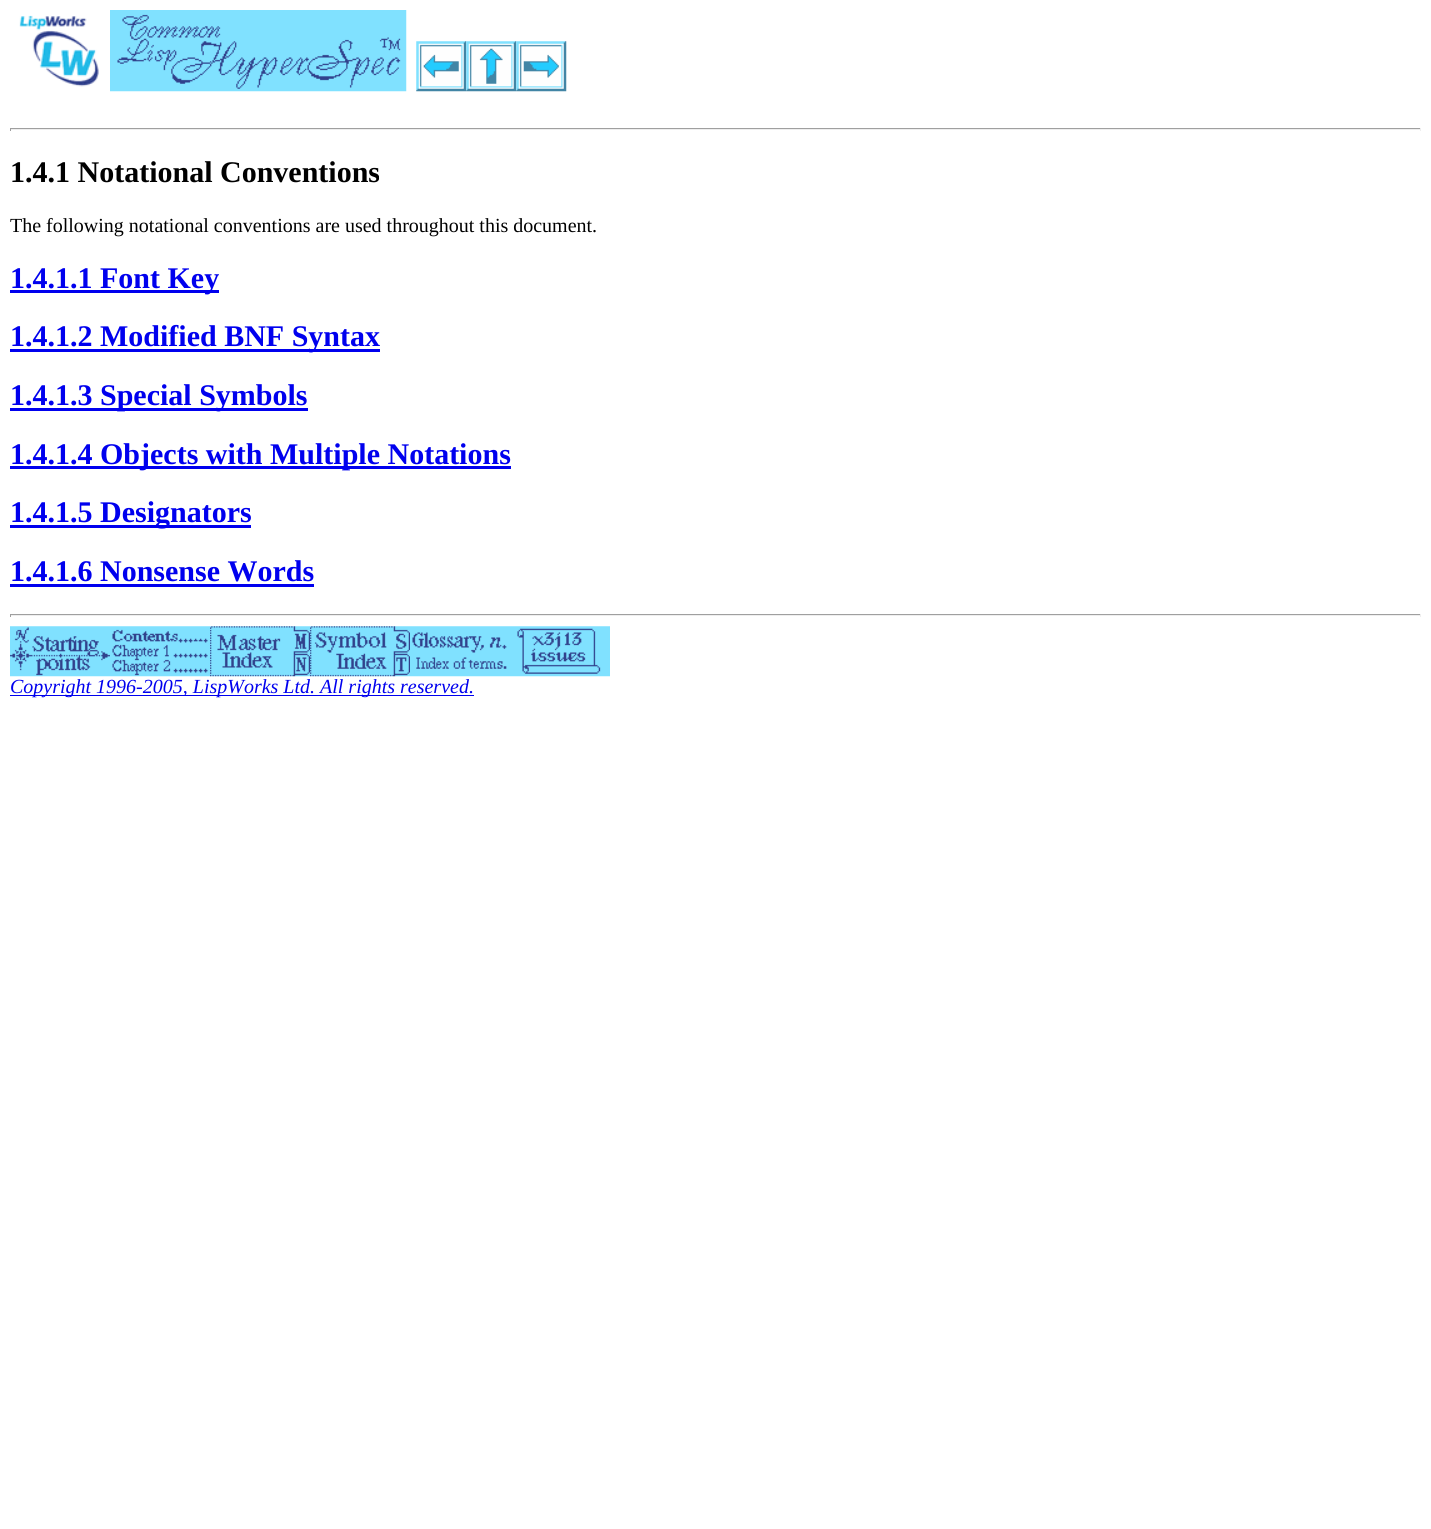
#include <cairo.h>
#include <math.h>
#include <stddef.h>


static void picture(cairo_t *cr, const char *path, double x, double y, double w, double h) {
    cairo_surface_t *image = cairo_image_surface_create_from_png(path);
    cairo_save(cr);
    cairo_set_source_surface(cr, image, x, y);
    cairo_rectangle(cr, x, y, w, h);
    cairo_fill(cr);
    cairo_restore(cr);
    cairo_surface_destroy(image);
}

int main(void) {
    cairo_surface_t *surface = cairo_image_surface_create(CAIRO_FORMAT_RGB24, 1431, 1529);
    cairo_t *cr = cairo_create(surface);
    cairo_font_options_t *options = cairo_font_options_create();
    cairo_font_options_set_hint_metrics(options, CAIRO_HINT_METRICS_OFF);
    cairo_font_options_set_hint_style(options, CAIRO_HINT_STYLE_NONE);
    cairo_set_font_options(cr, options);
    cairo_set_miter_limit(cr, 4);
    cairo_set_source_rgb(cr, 1, 1, 1);
    cairo_paint(cr);
    picture(cr, "img1.png", 19, 15, 80, 72);
    picture(cr, "img2.png", 110, 10, 297, 82);
    picture(cr, "img3.png", 416, 41, 51, 51);
    picture(cr, "img4.png", 466, 41, 51, 51);
    picture(cr, "img5.png", 516, 41, 51, 51);
    cairo_set_source_rgb(cr, 0.624, 0.624, 0.624);
    cairo_rectangle(cr, 10, 128, 1411, 1);
    cairo_fill(cr);
    cairo_set_source_rgb(cr, 0.933, 0.933, 0.933);
    cairo_rectangle(cr, 1420, 128, 1, 3);
    cairo_fill(cr);
    cairo_rectangle(cr, 10, 129, 1411, 1);
    cairo_fill(cr);
    cairo_set_source_rgb(cr, 0.624, 0.624, 0.624);
    cairo_rectangle(cr, 10, 128, 1, 3);
    cairo_fill(cr);
    cairo_select_font_face(cr, "Liberation Serif", CAIRO_FONT_SLANT_NORMAL, CAIRO_FONT_WEIGHT_BOLD);
    cairo_set_font_size(cr, 30);
    cairo_set_source_rgb(cr, 0, 0, 0);
    cairo_move_to(cr, 10, 182);
    cairo_show_text(cr, "1.4.1 Notational Conventions");
    cairo_select_font_face(cr, "Liberation Serif", CAIRO_FONT_SLANT_NORMAL, CAIRO_FONT_WEIGHT_NORMAL);
    cairo_set_font_size(cr, 20);
    cairo_move_to(cr, 10, 232);
    cairo_show_text(cr, "The following notational conventions are used throughout this document.");
    cairo_set_source_rgb(cr, 0, 0, 0.933);
    cairo_rectangle(cr, 10, 290, 209, 3);
    cairo_fill(cr);
    cairo_select_font_face(cr, "Liberation Serif", CAIRO_FONT_SLANT_NORMAL, CAIRO_FONT_WEIGHT_BOLD);
    cairo_set_font_size(cr, 30);
    cairo_move_to(cr, 10, 288);
    cairo_show_text(cr, "1.4.1.1 Font Key");
    cairo_rectangle(cr, 10, 349, 370, 3);
    cairo_fill(cr);
    cairo_move_to(cr, 10, 346);
    cairo_show_text(cr, "1.4.1.2 Modified BNF Syntax");
    cairo_rectangle(cr, 10, 408, 298, 3);
    cairo_fill(cr);
    cairo_move_to(cr, 10, 405);
    cairo_show_text(cr, "1.4.1.3 Special Symbols");
    cairo_rectangle(cr, 10, 466, 501, 3);
    cairo_fill(cr);
    cairo_move_to(cr, 10, 464);
    cairo_show_text(cr, "1.4.1.4 Objects with Multiple Notations");
    cairo_rectangle(cr, 10, 525, 241, 3);
    cairo_fill(cr);
    cairo_move_to(cr, 10, 522);
    cairo_show_text(cr, "1.4.1.5 Designators");
    cairo_move_to(cr, 10, 581);
    cairo_show_text(cr, "1.4.1.6 Nonsense Words");
    cairo_rectangle(cr, 10, 584, 304, 3);
    cairo_fill(cr);
    cairo_set_source_rgb(cr, 0.624, 0.624, 0.624);
    cairo_rectangle(cr, 10, 614, 1411, 1);
    cairo_fill(cr);
    cairo_set_source_rgb(cr, 0.933, 0.933, 0.933);
    cairo_rectangle(cr, 1420, 614, 1, 3);
    cairo_fill(cr);
    cairo_rectangle(cr, 10, 615, 1411, 1);
    cairo_fill(cr);
    cairo_set_source_rgb(cr, 0.624, 0.624, 0.624);
    cairo_rectangle(cr, 10, 614, 1, 3);
    cairo_fill(cr);
    picture(cr, "img6.png", 10, 626, 100, 51);
    picture(cr, "img7.png", 110, 626, 100, 51);
    picture(cr, "img8.png", 210, 626, 100, 51);
    picture(cr, "img9.png", 310, 626, 100, 51);
    picture(cr, "img10.png", 410, 626, 100, 51);
    picture(cr, "img11.png", 510, 626, 100, 51);
    cairo_set_source_rgb(cr, 0, 0, 0.933);
    cairo_rectangle(cr, 10, 695, 464, 1);
    cairo_fill(cr);
    cairo_select_font_face(cr, "Liberation Serif", CAIRO_FONT_SLANT_ITALIC, CAIRO_FONT_WEIGHT_NORMAL);
    cairo_set_font_size(cr, 20);
    cairo_move_to(cr, 10, 693);
    cairo_show_text(cr, "Copyright 1996-2005, LispWorks Ltd. All rights reserved.");
    cairo_surface_write_to_png(surface, "page.png");
    cairo_font_options_destroy(options);
    cairo_destroy(cr);
    cairo_surface_destroy(surface);
    return 0;
}
